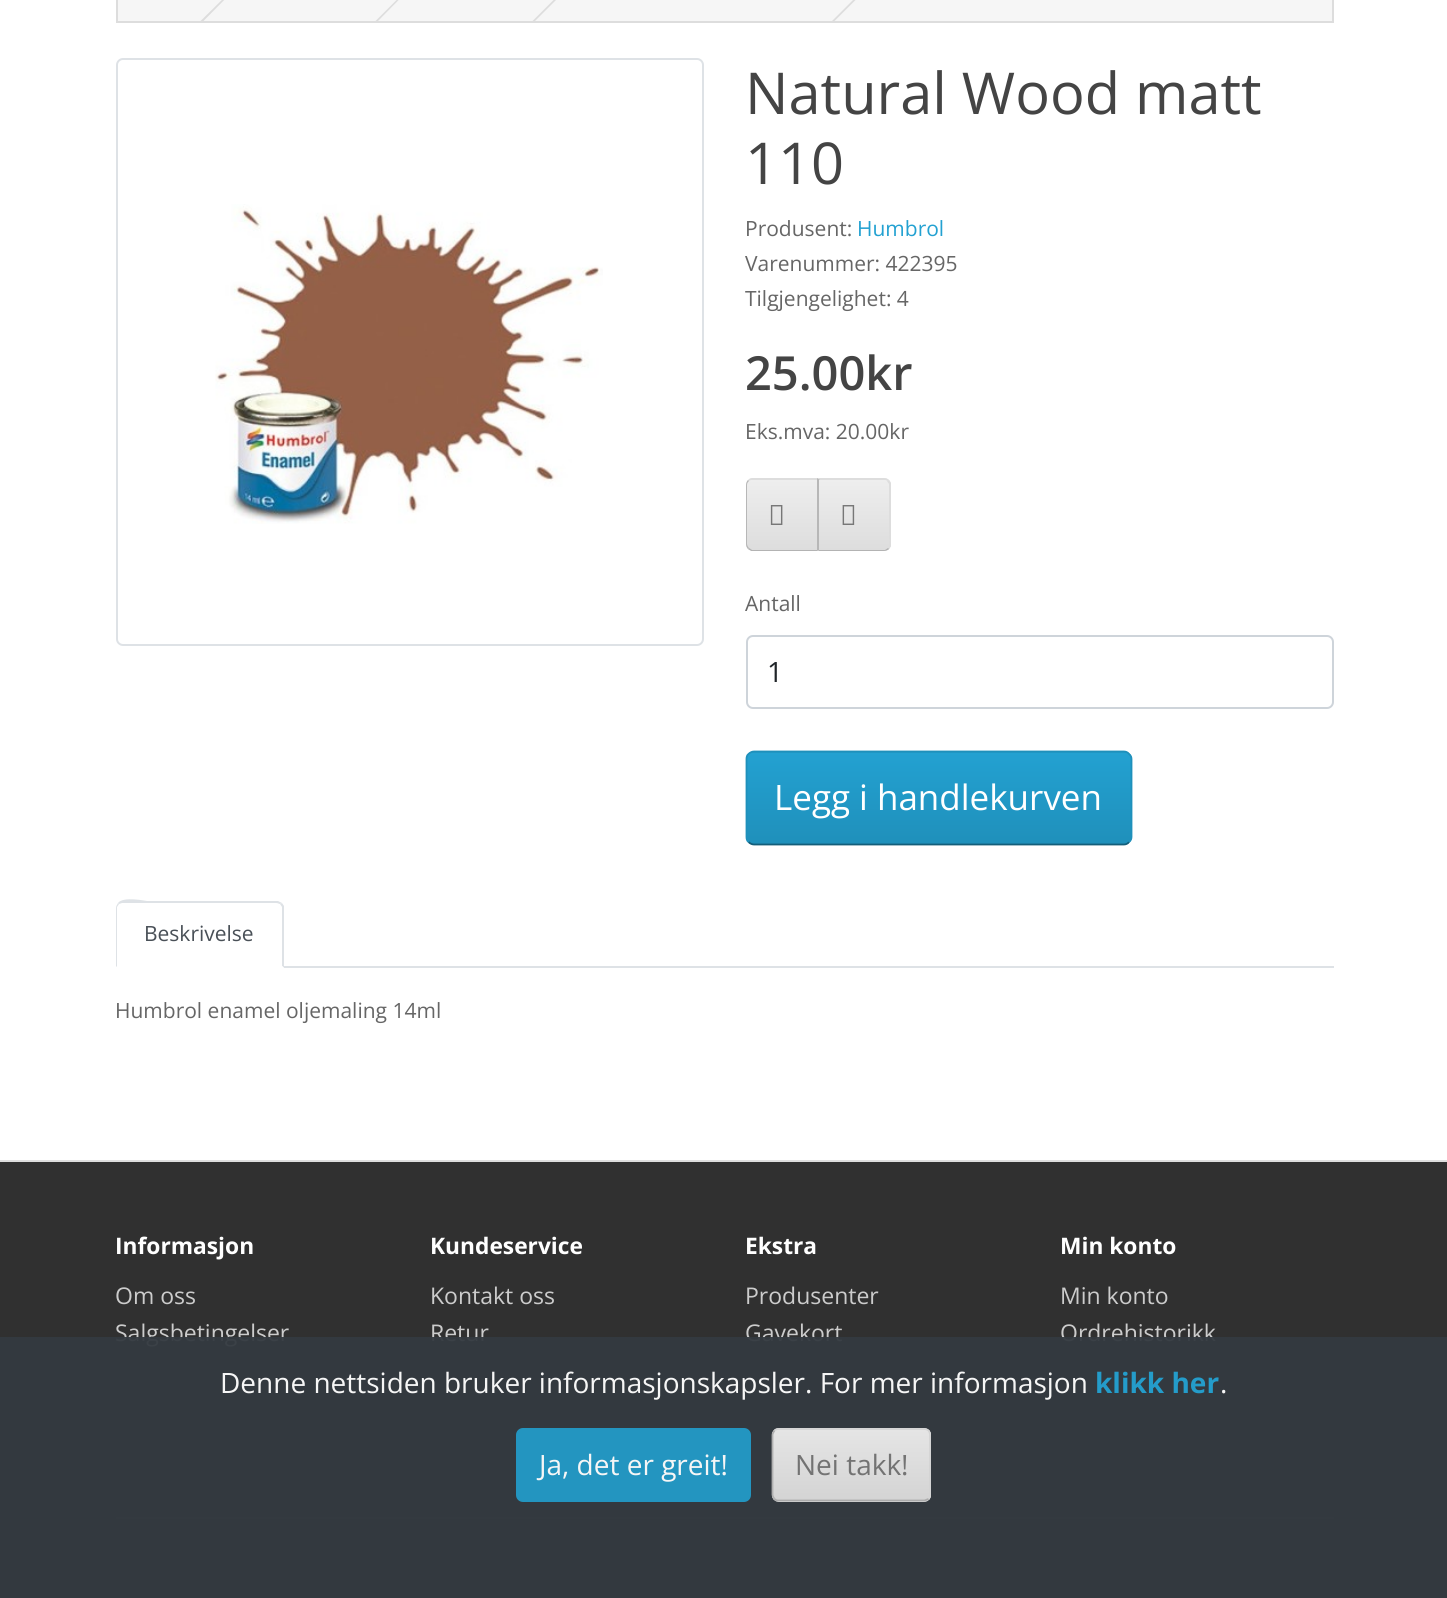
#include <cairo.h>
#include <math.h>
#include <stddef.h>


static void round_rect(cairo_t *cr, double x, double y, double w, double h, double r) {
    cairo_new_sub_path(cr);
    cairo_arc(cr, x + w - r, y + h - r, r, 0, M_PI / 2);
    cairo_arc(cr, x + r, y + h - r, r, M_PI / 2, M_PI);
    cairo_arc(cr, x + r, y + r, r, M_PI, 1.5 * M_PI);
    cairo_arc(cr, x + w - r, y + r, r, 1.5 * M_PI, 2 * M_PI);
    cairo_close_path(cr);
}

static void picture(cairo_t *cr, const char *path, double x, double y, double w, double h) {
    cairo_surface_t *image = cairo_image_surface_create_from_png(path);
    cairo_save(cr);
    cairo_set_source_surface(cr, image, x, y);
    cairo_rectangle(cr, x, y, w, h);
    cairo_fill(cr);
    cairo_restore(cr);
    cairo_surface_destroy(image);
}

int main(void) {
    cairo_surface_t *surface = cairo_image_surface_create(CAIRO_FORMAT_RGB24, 1447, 1598);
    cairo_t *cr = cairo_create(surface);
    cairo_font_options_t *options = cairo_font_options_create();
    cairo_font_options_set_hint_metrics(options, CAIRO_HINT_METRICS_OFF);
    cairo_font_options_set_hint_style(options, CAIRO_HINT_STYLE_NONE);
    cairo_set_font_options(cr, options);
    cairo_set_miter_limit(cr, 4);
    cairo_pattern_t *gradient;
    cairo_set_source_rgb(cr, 1, 1, 1);
    cairo_paint(cr);
    cairo_set_source_rgb(cr, 0.961, 0.961, 0.961);
    cairo_rectangle(cr, 117, -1, 1216, 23);
    cairo_fill_preserve(cr);
    cairo_set_source_rgb(cr, 0.867, 0.867, 0.867);
    cairo_stroke(cr);
    cairo_new_path(cr);
    cairo_move_to(cr, 200.5, 21);
    cairo_line_to(cr, 233, -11);
    cairo_line_to(cr, 234, -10);
    cairo_line_to(cr, 202, 22.5);
    cairo_close_path(cr);
    cairo_fill(cr);
    cairo_new_path(cr);
    cairo_move_to(cr, 375.5, 21);
    cairo_line_to(cr, 407.5, -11);
    cairo_line_to(cr, 408.5, -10);
    cairo_line_to(cr, 376.5, 22.5);
    cairo_close_path(cr);
    cairo_fill(cr);
    cairo_new_path(cr);
    cairo_move_to(cr, 532.5, 21);
    cairo_line_to(cr, 564.5, -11);
    cairo_line_to(cr, 566, -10);
    cairo_line_to(cr, 533.5, 22.5);
    cairo_close_path(cr);
    cairo_fill(cr);
    cairo_new_path(cr);
    cairo_move_to(cr, 832, 21);
    cairo_line_to(cr, 864, -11);
    cairo_line_to(cr, 865.5, -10);
    cairo_line_to(cr, 833, 22.5);
    cairo_close_path(cr);
    cairo_fill(cr);
    round_rect(cr, 117, 59, 586, 586, 6);
    cairo_set_source_rgb(cr, 0.871, 0.886, 0.902);
    cairo_stroke(cr);
    picture(cr, "img1.png", 215, 204, 388, 320);
    cairo_select_font_face(cr, "Open Sans", CAIRO_FONT_SLANT_NORMAL, CAIRO_FONT_WEIGHT_NORMAL);
    cairo_set_font_size(cr, 57.75);
    cairo_set_source_rgb(cr, 0.267, 0.267, 0.267);
    cairo_move_to(cr, 745, 114);
    cairo_show_text(cr, "Natural Wood matt");
    cairo_move_to(cr, 745, 184);
    cairo_show_text(cr, "110");
    cairo_set_font_size(cr, 21);
    cairo_set_source_rgb(cr, 0.4, 0.4, 0.4);
    cairo_move_to(cr, 745, 236);
    cairo_show_text(cr, "Produsent:");
    cairo_set_source_rgb(cr, 0.137, 0.631, 0.82);
    cairo_move_to(cr, 857, 236);
    cairo_show_text(cr, "Humbrol");
    cairo_set_source_rgb(cr, 0.4, 0.4, 0.4);
    cairo_move_to(cr, 745, 271);
    cairo_show_text(cr, "Varenummer: 422395");
    cairo_move_to(cr, 745, 306);
    cairo_show_text(cr, "Tilgjengelighet: 4");
    cairo_select_font_face(cr, "Open Sans SemiBold", CAIRO_FONT_SLANT_NORMAL, CAIRO_FONT_WEIGHT_NORMAL);
    cairo_set_font_size(cr, 47);
    cairo_set_source_rgb(cr, 0.267, 0.267, 0.267);
    cairo_move_to(cr, 745, 390);
    cairo_show_text(cr, "25.00kr");
    cairo_select_font_face(cr, "Open Sans", CAIRO_FONT_SLANT_NORMAL, CAIRO_FONT_WEIGHT_NORMAL);
    cairo_set_font_size(cr, 21);
    cairo_set_source_rgb(cr, 0.4, 0.4, 0.4);
    cairo_move_to(cr, 745, 439);
    cairo_show_text(cr, "Eks.mva: 20.00kr");
    cairo_save(cr);
    cairo_new_path(cr);
    cairo_move_to(cr, 753, 478);
    cairo_line_to(cr, 819, 478);
    cairo_line_to(cr, 819, 551);
    cairo_line_to(cr, 753, 551);
    cairo_curve_to(cr, 749, 551, 746, 548, 746, 544);
    cairo_line_to(cr, 746, 485);
    cairo_curve_to(cr, 746, 481, 749, 478, 753, 478);
    cairo_close_path(cr);
    cairo_clip(cr);
    gradient = cairo_pattern_create_linear(782, 480, 782, 550);
    cairo_pattern_add_color_stop_rgba(gradient, 0, 0.933, 0.933, 0.933, 1);
    cairo_pattern_add_color_stop_rgba(gradient, 1, 0.867, 0.867, 0.867, 1);
    cairo_set_source(cr, gradient);
    cairo_pattern_destroy(gradient);
    cairo_rectangle(cr, 746, 480, 71, 70);
    cairo_fill(cr);
    cairo_restore(cr);
    cairo_set_source_rgb(cr, 0.867, 0.867, 0.867);
    cairo_new_path(cr);
    cairo_move_to(cr, 752, 478);
    cairo_curve_to(cr, 750, 478, 749, 479, 748, 480);
    cairo_line_to(cr, 749, 481);
    cairo_curve_to(cr, 750, 480, 751, 480, 752, 480);
    cairo_line_to(cr, 817, 480);
    cairo_line_to(cr, 819, 478);
    cairo_close_path(cr);
    cairo_fill(cr);
    cairo_set_source_rgb(cr, 0.702, 0.702, 0.702);
    cairo_new_path(cr);
    cairo_move_to(cr, 819, 551);
    cairo_line_to(cr, 751, 551);
    cairo_line_to(cr, 748, 549);
    cairo_line_to(cr, 749, 548);
    cairo_line_to(cr, 752, 550);
    cairo_line_to(cr, 817, 550);
    cairo_line_to(cr, 817, 549);
    cairo_close_path(cr);
    cairo_fill(cr);
    cairo_set_source_rgb(cr, 0.718, 0.718, 0.718);
    cairo_new_path(cr);
    cairo_move_to(cr, 748, 480);
    cairo_curve_to(cr, 747, 481, 746, 483, 746, 485);
    cairo_line_to(cr, 746, 544);
    cairo_curve_to(cr, 746, 546, 747, 548, 748, 549);
    cairo_line_to(cr, 749, 548);
    cairo_curve_to(cr, 748, 547, 747, 545, 747, 544);
    cairo_line_to(cr, 747, 485);
    cairo_curve_to(cr, 747, 483, 748, 482, 749, 481);
    cairo_close_path(cr);
    cairo_fill(cr);
    picture(cr, "img2.png", 770, 505, 13, 20);
    cairo_set_source_rgb(cr, 0.906, 0.906, 0.906);
    cairo_new_path(cr);
    cairo_move_to(cr, 817, 478);
    cairo_line_to(cr, 884, 478);
    cairo_curve_to(cr, 888, 478, 891, 481, 891, 485);
    cairo_line_to(cr, 891, 544);
    cairo_curve_to(cr, 891, 548, 888, 551, 884, 551);
    cairo_line_to(cr, 817, 551);
    cairo_close_path(cr);
    cairo_fill(cr);
    cairo_save(cr);
    cairo_new_path(cr);
    cairo_move_to(cr, 817, 478);
    cairo_line_to(cr, 884, 478);
    cairo_curve_to(cr, 888, 478, 891, 481, 891, 485);
    cairo_line_to(cr, 891, 544);
    cairo_curve_to(cr, 891, 548, 888, 551, 884, 551);
    cairo_line_to(cr, 817, 551);
    cairo_close_path(cr);
    cairo_clip(cr);
    gradient = cairo_pattern_create_linear(854, 480, 854, 550);
    cairo_pattern_add_color_stop_rgba(gradient, 0, 0.933, 0.933, 0.933, 1);
    cairo_pattern_add_color_stop_rgba(gradient, 1, 0.867, 0.867, 0.867, 1);
    cairo_set_source(cr, gradient);
    cairo_pattern_destroy(gradient);
    cairo_rectangle(cr, 819, 480, 72, 70);
    cairo_fill(cr);
    cairo_restore(cr);
    cairo_set_source_rgb(cr, 0.867, 0.867, 0.867);
    cairo_new_path(cr);
    cairo_move_to(cr, 889, 480);
    cairo_curve_to(cr, 888, 479, 886, 478, 884, 478);
    cairo_line_to(cr, 818, 478);
    cairo_line_to(cr, 820, 480);
    cairo_line_to(cr, 884, 480);
    cairo_curve_to(cr, 885, 480, 887, 480, 887, 481);
    cairo_close_path(cr);
    cairo_fill(cr);
    cairo_new_path(cr);
    cairo_move_to(cr, 889, 480);
    cairo_line_to(cr, 891, 483);
    cairo_line_to(cr, 891, 546);
    cairo_line_to(cr, 889, 549);
    cairo_line_to(cr, 888, 548);
    cairo_curve_to(cr, 890, 545, 889, 537, 889, 534);
    cairo_line_to(cr, 889, 484);
    cairo_line_to(cr, 887, 481);
    cairo_close_path(cr);
    cairo_fill(cr);
    cairo_set_source_rgb(cr, 0.702, 0.702, 0.702);
    cairo_new_path(cr);
    cairo_move_to(cr, 889, 549);
    cairo_curve_to(cr, 888, 550, 886, 551, 884, 551);
    cairo_line_to(cr, 818, 551);
    cairo_line_to(cr, 819, 550);
    cairo_line_to(cr, 885, 550);
    cairo_line_to(cr, 888, 548);
    cairo_close_path(cr);
    cairo_fill(cr);
    cairo_set_source_rgb(cr, 0.718, 0.718, 0.718);
    cairo_new_path(cr);
    cairo_move_to(cr, 819, 480);
    cairo_line_to(cr, 819, 550);
    cairo_line_to(cr, 817, 551);
    cairo_line_to(cr, 817, 478);
    cairo_line_to(cr, 820, 480);
    cairo_close_path(cr);
    cairo_fill(cr);
    picture(cr, "img3.png", 842, 505, 13, 20);
    cairo_set_source_rgb(cr, 0.4, 0.4, 0.4);
    cairo_move_to(cr, 745, 611);
    cairo_show_text(cr, "Antall");
    round_rect(cr, 747, 636, 586, 72, 6);
    cairo_set_source_rgb(cr, 0.808, 0.831, 0.855);
    cairo_stroke(cr);
    cairo_set_font_size(cr, 28);
    cairo_set_source_rgb(cr, 0.129, 0.145, 0.161);
    cairo_move_to(cr, 767, 682);
    cairo_show_text(cr, "1");
    cairo_set_source_rgb(cr, 0.133, 0.604, 0.784);
    round_rect(cr, 746, 751, 386, 94, 9);
    cairo_fill(cr);
    cairo_save(cr);
    round_rect(cr, 746, 751, 386, 94, 9);
    cairo_clip(cr);
    gradient = cairo_pattern_create_linear(939, 753, 939, 844);
    cairo_pattern_add_color_stop_rgba(gradient, 0, 0.137, 0.631, 0.82, 1);
    cairo_pattern_add_color_stop_rgba(gradient, 1, 0.122, 0.565, 0.733, 1);
    cairo_set_source(cr, gradient);
    cairo_pattern_destroy(gradient);
    cairo_rectangle(cr, 747, 753, 385, 91);
    cairo_fill(cr);
    cairo_restore(cr);
    cairo_new_path(cr);
    cairo_move_to(cr, 1129, 842);
    cairo_curve_to(cr, 1128, 843.5, 1126, 844.5, 1124, 844.5);
    cairo_line_to(cr, 754, 844.5);
    cairo_curve_to(cr, 752, 844.5, 750, 843.5, 748.5, 842);
    cairo_set_source_rgb(cr, 0.078, 0.369, 0.478);
    cairo_set_line_width(cr, 1.8);
    cairo_stroke(cr);
    cairo_new_path(cr);
    cairo_move_to(cr, 748.5, 842);
    cairo_curve_to(cr, 747, 841, 746.5, 839, 746.5, 837);
    cairo_line_to(cr, 746.5, 759);
    cairo_curve_to(cr, 746.5, 757, 747, 755, 748.5, 754);
    cairo_curve_to(cr, 750, 752.5, 752, 751.5, 754, 751.5);
    cairo_line_to(cr, 1124, 751.5);
    cairo_curve_to(cr, 1126, 751.5, 1128, 752.5, 1129, 754);
    cairo_curve_to(cr, 1130.5, 755, 1131.5, 757, 1131.5, 759);
    cairo_line_to(cr, 1131.5, 837);
    cairo_curve_to(cr, 1131.5, 839, 1130.5, 841, 1129, 842);
    cairo_set_source_rgb(cr, 0.122, 0.565, 0.733);
    cairo_stroke(cr);
    cairo_set_font_size(cr, 35);
    cairo_set_source_rgb(cr, 1, 1, 1);
    cairo_move_to(cr, 774, 810);
    cairo_show_text(cr, "Legg i handlekurven");
    cairo_set_source_rgb(cr, 0.871, 0.886, 0.902);
    cairo_rectangle(cr, 284, 966, 1050, 2);
    cairo_fill(cr);
    cairo_new_path(cr);
    cairo_move_to(cr, 122, 903);
    cairo_line_to(cr, 119, 904);
    cairo_line_to(cr, 118, 903);
    cairo_curve_to(cr, 123, 896, 146, 901, 147, 901);
    cairo_line_to(cr, 278, 901);
    cairo_line_to(cr, 282, 903);
    cairo_line_to(cr, 280, 904);
    cairo_curve_to(cr, 279, 904, 278, 903, 276, 903);
    cairo_close_path(cr);
    cairo_fill(cr);
    cairo_new_path(cr);
    cairo_move_to(cr, 282, 903);
    cairo_line_to(cr, 284, 906);
    cairo_line_to(cr, 284, 968);
    cairo_line_to(cr, 282, 966);
    cairo_line_to(cr, 282, 907);
    cairo_line_to(cr, 280, 904);
    cairo_close_path(cr);
    cairo_fill(cr);
    cairo_set_source_rgb(cr, 1, 1, 1);
    cairo_new_path(cr);
    cairo_move_to(cr, 284, 968);
    cairo_line_to(cr, 116, 968);
    cairo_line_to(cr, 117, 966);
    cairo_line_to(cr, 282, 966);
    cairo_close_path(cr);
    cairo_fill(cr);
    cairo_set_source_rgb(cr, 0.871, 0.886, 0.902);
    cairo_new_path(cr);
    cairo_move_to(cr, 116, 967);
    cairo_line_to(cr, 116, 908);
    cairo_curve_to(cr, 116, 906, 117, 905, 118, 903);
    cairo_line_to(cr, 119, 904);
    cairo_line_to(cr, 117, 907);
    cairo_line_to(cr, 117, 966);
    cairo_close_path(cr);
    cairo_fill(cr);
    cairo_set_font_size(cr, 21);
    cairo_set_source_rgb(cr, 0.286, 0.314, 0.341);
    cairo_move_to(cr, 144, 941);
    cairo_show_text(cr, "Beskrivelse");
    cairo_set_source_rgb(cr, 0.4, 0.4, 0.4);
    cairo_move_to(cr, 115, 1018);
    cairo_show_text(cr, "Humbrol enamel oljemaling 14ml");
    cairo_set_source_rgb(cr, 0.188, 0.188, 0.188);
    cairo_rectangle(cr, 0, 1162, 1447, 436);
    cairo_fill(cr);
    cairo_set_source_rgb(cr, 0.867, 0.867, 0.867);
    cairo_rectangle(cr, 0, 1160, 1447, 2);
    cairo_fill(cr);
    cairo_select_font_face(cr, "Open Sans", CAIRO_FONT_SLANT_NORMAL, CAIRO_FONT_WEIGHT_BOLD);
    cairo_set_font_size(cr, 22.75);
    cairo_set_source_rgb(cr, 1, 1, 1);
    cairo_move_to(cr, 115, 1254);
    cairo_show_text(cr, "Informasjon");
    cairo_select_font_face(cr, "Open Sans", CAIRO_FONT_SLANT_NORMAL, CAIRO_FONT_WEIGHT_NORMAL);
    cairo_set_font_size(cr, 23);
    cairo_set_source_rgb(cr, 0.8, 0.8, 0.8);
    cairo_move_to(cr, 115, 1304);
    cairo_show_text(cr, "Om oss");
    cairo_move_to(cr, 115, 1341);
    cairo_show_text(cr, "Salgsbetingelser");
    cairo_select_font_face(cr, "Open Sans", CAIRO_FONT_SLANT_NORMAL, CAIRO_FONT_WEIGHT_BOLD);
    cairo_set_font_size(cr, 22.75);
    cairo_set_source_rgb(cr, 1, 1, 1);
    cairo_move_to(cr, 430, 1254);
    cairo_show_text(cr, "Kundeservice");
    cairo_select_font_face(cr, "Open Sans", CAIRO_FONT_SLANT_NORMAL, CAIRO_FONT_WEIGHT_NORMAL);
    cairo_set_font_size(cr, 23);
    cairo_set_source_rgb(cr, 0.8, 0.8, 0.8);
    cairo_move_to(cr, 430, 1304);
    cairo_show_text(cr, "Kontakt oss");
    cairo_move_to(cr, 430, 1341);
    cairo_show_text(cr, "Retur");
    cairo_select_font_face(cr, "Open Sans", CAIRO_FONT_SLANT_NORMAL, CAIRO_FONT_WEIGHT_BOLD);
    cairo_set_font_size(cr, 22.75);
    cairo_set_source_rgb(cr, 1, 1, 1);
    cairo_move_to(cr, 745, 1254);
    cairo_show_text(cr, "Ekstra");
    cairo_select_font_face(cr, "Open Sans", CAIRO_FONT_SLANT_NORMAL, CAIRO_FONT_WEIGHT_NORMAL);
    cairo_set_font_size(cr, 23);
    cairo_set_source_rgb(cr, 0.8, 0.8, 0.8);
    cairo_move_to(cr, 745, 1304);
    cairo_show_text(cr, "Produsenter");
    cairo_move_to(cr, 745, 1341);
    cairo_show_text(cr, "Gavekort");
    cairo_select_font_face(cr, "Open Sans", CAIRO_FONT_SLANT_NORMAL, CAIRO_FONT_WEIGHT_BOLD);
    cairo_set_font_size(cr, 22.75);
    cairo_set_source_rgb(cr, 1, 1, 1);
    cairo_move_to(cr, 1060, 1254);
    cairo_show_text(cr, "Min konto");
    cairo_select_font_face(cr, "Open Sans", CAIRO_FONT_SLANT_NORMAL, CAIRO_FONT_WEIGHT_NORMAL);
    cairo_set_font_size(cr, 23);
    cairo_set_source_rgb(cr, 0.8, 0.8, 0.8);
    cairo_move_to(cr, 1060, 1304);
    cairo_show_text(cr, "Min konto");
    cairo_move_to(cr, 1060, 1341);
    cairo_show_text(cr, "Ordrehistorikk");
    cairo_set_source_rgb(cr, 0.243, 0.243, 0.243);
    cairo_rectangle(cr, 116, 1517, 1218, 2);
    cairo_fill(cr);
    cairo_set_source_rgba(cr, 0.204, 0.227, 0.251, 0.95);
    cairo_rectangle(cr, 0, 1337, 1447, 261);
    cairo_fill(cr);
    cairo_set_font_size(cr, 28);
    cairo_set_source_rgb(cr, 0.961, 0.961, 0.961);
    cairo_move_to(cr, 220, 1393);
    cairo_show_text(cr, "Denne nettsiden bruker informasjonskapsler. For mer informasjon");
    cairo_select_font_face(cr, "Open Sans", CAIRO_FONT_SLANT_NORMAL, CAIRO_FONT_WEIGHT_BOLD);
    cairo_set_source_rgb(cr, 0.141, 0.612, 0.792);
    cairo_move_to(cr, 1095, 1393);
    cairo_show_text(cr, "klikk her");
    cairo_select_font_face(cr, "Open Sans", CAIRO_FONT_SLANT_NORMAL, CAIRO_FONT_WEIGHT_NORMAL);
    cairo_set_source_rgb(cr, 0.961, 0.961, 0.961);
    cairo_move_to(cr, 1220, 1393);
    cairo_show_text(cr, ".");
    cairo_set_source_rgb(cr, 0.137, 0.584, 0.753);
    round_rect(cr, 516, 1428, 235, 74, 7);
    cairo_fill(cr);
    cairo_set_source_rgb(cr, 0.961, 0.961, 0.961);
    cairo_move_to(cr, 539, 1475);
    cairo_show_text(cr, "Ja, det er greit!");
    cairo_set_source_rgb(cr, 0.871, 0.871, 0.871);
    round_rect(cr, 772, 1428, 159, 74, 7);
    cairo_fill(cr);
    cairo_save(cr);
    round_rect(cr, 772, 1428, 159, 74, 7);
    cairo_clip(cr);
    gradient = cairo_pattern_create_linear(851, 1430, 851, 1500);
    cairo_pattern_add_color_stop_rgba(gradient, 0, 0.898, 0.898, 0.898, 1);
    cairo_pattern_add_color_stop_rgba(gradient, 1, 0.831, 0.831, 0.831, 1);
    cairo_set_source(cr, gradient);
    cairo_pattern_destroy(gradient);
    cairo_rectangle(cr, 772, 1430, 159, 70);
    cairo_fill(cr);
    cairo_restore(cr);
    cairo_new_path(cr);
    cairo_move_to(cr, 774.5, 1430.5);
    cairo_curve_to(cr, 775.5, 1429.5, 777, 1429, 779, 1429);
    cairo_line_to(cr, 924, 1429);
    cairo_curve_to(cr, 925.5, 1429, 927, 1429.5, 928.5, 1430.5);
    cairo_curve_to(cr, 929.5, 1432, 930, 1433.5, 930, 1435);
    cairo_line_to(cr, 930, 1494.5);
    cairo_curve_to(cr, 930, 1496, 929.5, 1497.5, 928.5, 1499);
    cairo_set_source_rgb(cr, 0.831, 0.831, 0.831);
    cairo_stroke(cr);
    cairo_new_path(cr);
    cairo_move_to(cr, 928.5, 1499);
    cairo_line_to(cr, 924.5, 1500.5);
    cairo_line_to(cr, 778, 1500.5);
    cairo_curve_to(cr, 776.5, 1500.5, 775.5, 1500, 774.5, 1499);
    cairo_set_source_rgb(cr, 0.675, 0.675, 0.675);
    cairo_stroke(cr);
    cairo_new_path(cr);
    cairo_move_to(cr, 774.5, 1499);
    cairo_curve_to(cr, 773.5, 1497.5, 772.5, 1496, 772.5, 1494.5);
    cairo_line_to(cr, 772.5, 1435);
    cairo_curve_to(cr, 772.5, 1433.5, 773.5, 1432, 774.5, 1430.5);
    cairo_set_source_rgb(cr, 0.69, 0.69, 0.69);
    cairo_stroke(cr);
    cairo_set_source_rgb(cr, 0.451, 0.451, 0.451);
    cairo_move_to(cr, 795, 1475);
    cairo_show_text(cr, "Nei takk!");
    cairo_surface_write_to_png(surface, "page.png");
    cairo_font_options_destroy(options);
    cairo_destroy(cr);
    cairo_surface_destroy(surface);
    return 0;
}
